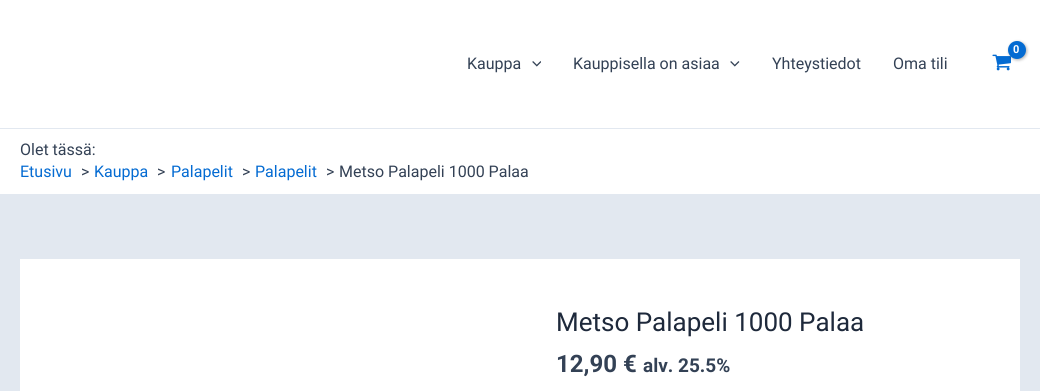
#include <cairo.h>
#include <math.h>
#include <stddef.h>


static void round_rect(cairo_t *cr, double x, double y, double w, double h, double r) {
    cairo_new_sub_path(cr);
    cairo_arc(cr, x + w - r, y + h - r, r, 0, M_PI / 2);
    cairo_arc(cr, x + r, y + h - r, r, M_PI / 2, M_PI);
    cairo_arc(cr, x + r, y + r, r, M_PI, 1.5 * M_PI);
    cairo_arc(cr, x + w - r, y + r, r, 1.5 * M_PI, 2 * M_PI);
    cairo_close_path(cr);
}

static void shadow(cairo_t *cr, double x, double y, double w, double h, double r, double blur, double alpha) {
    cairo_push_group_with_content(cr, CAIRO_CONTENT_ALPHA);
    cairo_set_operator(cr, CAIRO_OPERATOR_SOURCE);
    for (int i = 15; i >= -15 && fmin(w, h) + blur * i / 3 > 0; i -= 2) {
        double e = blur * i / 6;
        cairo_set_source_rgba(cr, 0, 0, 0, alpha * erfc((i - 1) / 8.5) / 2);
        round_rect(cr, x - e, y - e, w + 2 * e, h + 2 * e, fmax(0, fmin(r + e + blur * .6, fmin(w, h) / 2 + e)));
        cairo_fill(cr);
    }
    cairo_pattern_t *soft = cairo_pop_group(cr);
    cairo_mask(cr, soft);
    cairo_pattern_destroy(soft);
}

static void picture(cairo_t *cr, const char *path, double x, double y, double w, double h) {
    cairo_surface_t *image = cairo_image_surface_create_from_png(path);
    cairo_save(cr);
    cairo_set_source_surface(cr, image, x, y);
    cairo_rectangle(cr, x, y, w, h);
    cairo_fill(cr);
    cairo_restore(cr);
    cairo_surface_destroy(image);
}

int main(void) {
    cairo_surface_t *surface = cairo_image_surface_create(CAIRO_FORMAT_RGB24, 1040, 391);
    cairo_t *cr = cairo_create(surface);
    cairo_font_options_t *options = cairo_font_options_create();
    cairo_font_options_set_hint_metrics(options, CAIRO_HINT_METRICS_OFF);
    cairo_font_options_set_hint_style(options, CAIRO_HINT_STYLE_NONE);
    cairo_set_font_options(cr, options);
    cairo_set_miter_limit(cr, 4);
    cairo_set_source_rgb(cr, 0.886, 0.91, 0.941);
    cairo_paint(cr);
    cairo_set_source_rgb(cr, 1, 1, 1);
    cairo_rectangle(cr, 0, 0, 1040, 128);
    cairo_fill(cr);
    picture(cr, "img1.png", 992, 54, 19, 17);
    cairo_set_source_rgb(cr, 0, 0, 0);
    shadow(cr, 1009, 42, 18, 18, 9, 1.5, 0.3);
    cairo_set_source_rgb(cr, 0.016, 0.42, 0.824);
    cairo_arc(cr, 1017, 50, 9, 0, 2 * M_PI);
    cairo_fill(cr);
    cairo_select_font_face(cr, "Roboto", CAIRO_FONT_SLANT_NORMAL, CAIRO_FONT_WEIGHT_BOLD);
    cairo_set_font_size(cr, 11);
    cairo_set_source_rgb(cr, 1, 1, 1);
    cairo_move_to(cr, 1013, 53);
    cairo_show_text(cr, "0");
    cairo_select_font_face(cr, "Roboto", CAIRO_FONT_SLANT_NORMAL, CAIRO_FONT_WEIGHT_NORMAL);
    cairo_set_font_size(cr, 16);
    cairo_set_source_rgb(cr, 0.2, 0.255, 0.333);
    cairo_move_to(cr, 467, 69);
    cairo_show_text(cr, "Kauppa");
    picture(cr, "img2.png", 532, 61, 9, 6);
    cairo_move_to(cr, 573, 69);
    cairo_show_text(cr, "Kauppisella on asiaa");
    picture(cr, "img3.png", 730, 61, 10, 6);
    cairo_move_to(cr, 772, 69);
    cairo_show_text(cr, "Yhteystiedot");
    cairo_move_to(cr, 893, 69);
    cairo_show_text(cr, "Oma tili");
    cairo_set_source_rgb(cr, 1, 1, 1);
    cairo_rectangle(cr, 0, 129, 1040, 65);
    cairo_fill(cr);
    cairo_set_source_rgb(cr, 0.2, 0.255, 0.333);
    cairo_move_to(cr, 20, 155);
    cairo_show_text(cr, "Olet tässä:");
    cairo_set_source_rgb(cr, 0.016, 0.42, 0.824);
    cairo_move_to(cr, 20, 177);
    cairo_show_text(cr, "Etusivu");
    cairo_set_source_rgb(cr, 0.2, 0.255, 0.333);
    cairo_move_to(cr, 81, 177);
    cairo_show_text(cr, ">");
    cairo_set_source_rgb(cr, 0.016, 0.42, 0.824);
    cairo_move_to(cr, 94, 177);
    cairo_show_text(cr, "Kauppa");
    cairo_set_source_rgb(cr, 0.2, 0.255, 0.333);
    cairo_move_to(cr, 157, 177);
    cairo_show_text(cr, ">");
    cairo_set_source_rgb(cr, 0.016, 0.42, 0.824);
    cairo_move_to(cr, 171, 177);
    cairo_show_text(cr, "Palapelit");
    cairo_set_source_rgb(cr, 0.2, 0.255, 0.333);
    cairo_move_to(cr, 242, 177);
    cairo_show_text(cr, ">");
    cairo_set_source_rgb(cr, 0.016, 0.42, 0.824);
    cairo_move_to(cr, 255, 177);
    cairo_show_text(cr, "Palapelit");
    cairo_set_source_rgb(cr, 0.2, 0.255, 0.333);
    cairo_move_to(cr, 326, 177);
    cairo_show_text(cr, ">");
    cairo_move_to(cr, 339, 177);
    cairo_show_text(cr, "Metso Palapeli 1000 Palaa");
    cairo_set_source_rgb(cr, 1, 1, 1);
    cairo_rectangle(cr, 20, 259, 1000, 132);
    cairo_fill(cr);
    cairo_set_font_size(cr, 26);
    cairo_set_source_rgb(cr, 0.118, 0.161, 0.231);
    cairo_move_to(cr, 556, 331);
    cairo_show_text(cr, "Metso Palapeli 1000 Palaa");
    cairo_select_font_face(cr, "Roboto", CAIRO_FONT_SLANT_NORMAL, CAIRO_FONT_WEIGHT_BOLD);
    cairo_set_font_size(cr, 24);
    cairo_set_source_rgb(cr, 0.2, 0.255, 0.333);
    cairo_move_to(cr, 556, 372);
    cairo_show_text(cr, "12,90 €");
    cairo_set_font_size(cr, 19);
    cairo_move_to(cr, 643, 372);
    cairo_show_text(cr, "alv. 25.5%");
    cairo_surface_write_to_png(surface, "page.png");
    cairo_font_options_destroy(options);
    cairo_destroy(cr);
    cairo_surface_destroy(surface);
    return 0;
}
